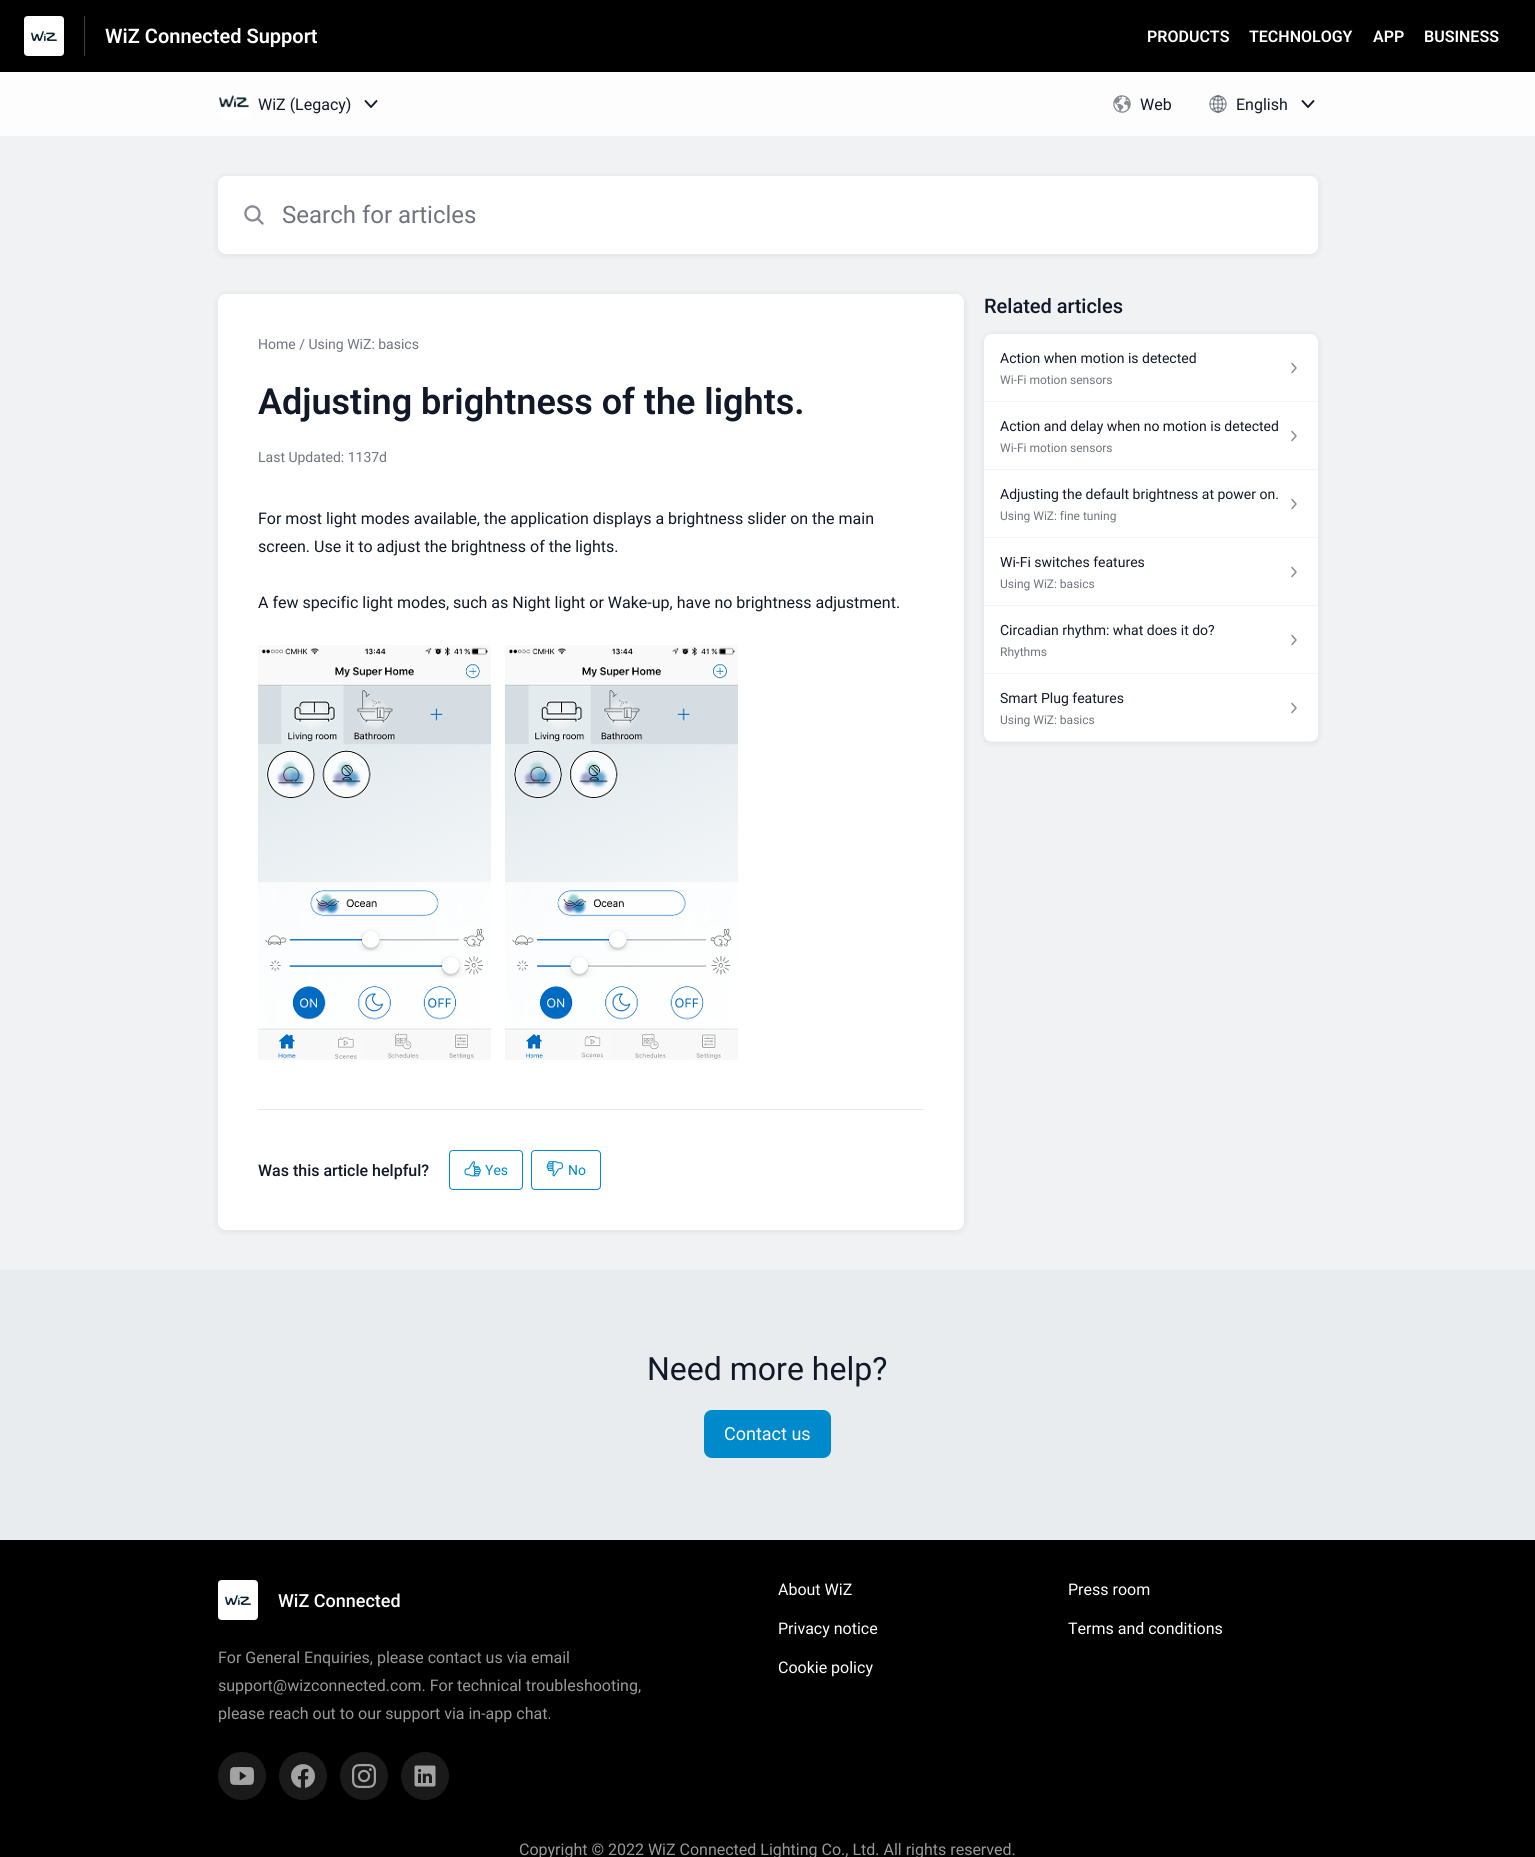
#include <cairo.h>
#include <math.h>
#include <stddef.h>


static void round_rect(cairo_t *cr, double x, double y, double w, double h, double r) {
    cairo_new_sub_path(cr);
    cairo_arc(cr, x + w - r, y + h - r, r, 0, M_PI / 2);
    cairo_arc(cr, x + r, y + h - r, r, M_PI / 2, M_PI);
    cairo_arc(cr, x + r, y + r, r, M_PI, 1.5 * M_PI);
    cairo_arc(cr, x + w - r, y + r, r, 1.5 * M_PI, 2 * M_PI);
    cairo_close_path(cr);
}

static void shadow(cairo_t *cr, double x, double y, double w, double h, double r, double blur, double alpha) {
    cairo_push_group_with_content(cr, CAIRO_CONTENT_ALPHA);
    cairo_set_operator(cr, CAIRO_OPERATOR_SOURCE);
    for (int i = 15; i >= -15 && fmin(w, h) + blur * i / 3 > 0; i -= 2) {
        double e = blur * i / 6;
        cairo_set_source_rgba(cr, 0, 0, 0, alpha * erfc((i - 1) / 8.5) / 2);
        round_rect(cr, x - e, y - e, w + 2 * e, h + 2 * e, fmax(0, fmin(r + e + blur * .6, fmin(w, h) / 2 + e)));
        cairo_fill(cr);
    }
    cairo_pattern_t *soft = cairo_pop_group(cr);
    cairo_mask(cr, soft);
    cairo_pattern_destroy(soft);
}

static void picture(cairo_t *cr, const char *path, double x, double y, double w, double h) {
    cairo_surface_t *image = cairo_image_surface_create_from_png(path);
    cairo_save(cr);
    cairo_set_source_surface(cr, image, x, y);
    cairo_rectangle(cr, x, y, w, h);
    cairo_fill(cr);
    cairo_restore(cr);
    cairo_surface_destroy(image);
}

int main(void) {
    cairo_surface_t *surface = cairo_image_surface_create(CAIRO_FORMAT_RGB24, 1535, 1857);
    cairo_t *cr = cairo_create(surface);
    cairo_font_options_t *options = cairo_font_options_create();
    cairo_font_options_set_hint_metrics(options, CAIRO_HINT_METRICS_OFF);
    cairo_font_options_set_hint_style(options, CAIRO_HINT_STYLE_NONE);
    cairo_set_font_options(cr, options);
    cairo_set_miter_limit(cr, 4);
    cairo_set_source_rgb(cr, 0.992, 0.992, 0.992);
    cairo_paint(cr);
    cairo_set_source_rgb(cr, 0, 0, 0);
    cairo_rectangle(cr, 0, 0, 1535, 72);
    cairo_fill(cr);
    cairo_set_source_rgb(cr, 0.251, 0.251, 0.251);
    cairo_rectangle(cr, 84, 16, 1, 40);
    cairo_fill(cr);
    picture(cr, "img1.png", 24, 16, 40, 40);
    cairo_select_font_face(cr, "Roboto SemiBold", CAIRO_FONT_SLANT_NORMAL, CAIRO_FONT_WEIGHT_NORMAL);
    cairo_set_font_size(cr, 20);
    cairo_set_source_rgb(cr, 1, 1, 1);
    cairo_move_to(cr, 105, 43);
    cairo_show_text(cr, "WiZ Connected Support");
    cairo_set_font_size(cr, 16);
    cairo_move_to(cr, 1147, 42);
    cairo_show_text(cr, "PRODUCTS");
    cairo_move_to(cr, 1249, 42);
    cairo_show_text(cr, "TECHNOLOGY");
    cairo_move_to(cr, 1373, 42);
    cairo_show_text(cr, "APP");
    cairo_move_to(cr, 1424, 42);
    cairo_show_text(cr, "BUSINESS");
    picture(cr, "img2.png", 219, 95, 31, 25);
    cairo_select_font_face(cr, "Roboto", CAIRO_FONT_SLANT_NORMAL, CAIRO_FONT_WEIGHT_NORMAL);
    cairo_set_source_rgb(cr, 0.067, 0.094, 0.153);
    cairo_move_to(cr, 258, 110);
    cairo_show_text(cr, "WiZ (Legacy)");
    cairo_new_path(cr);
    cairo_move_to(cr, 365.5, 101);
    cairo_line_to(cr, 371, 107);
    cairo_line_to(cr, 376.5, 101);
    cairo_set_line_width(cr, 1.9);
    cairo_set_line_cap(cr, CAIRO_LINE_CAP_ROUND);
    cairo_set_line_join(cr, CAIRO_LINE_JOIN_ROUND);
    cairo_stroke(cr);
    picture(cr, "img3.png", 1113, 95, 18, 18);
    cairo_move_to(cr, 1140, 110);
    cairo_show_text(cr, "Web");
    picture(cr, "img4.png", 1209, 95, 18, 18);
    cairo_move_to(cr, 1236, 110);
    cairo_show_text(cr, "English");
    cairo_new_path(cr);
    cairo_move_to(cr, 1302.5, 101);
    cairo_line_to(cr, 1308, 107);
    cairo_line_to(cr, 1313.5, 101);
    cairo_stroke(cr);
    cairo_set_source_rgb(cr, 0.941, 0.949, 0.957);
    cairo_rectangle(cr, 0, 136, 1535, 1134);
    cairo_fill(cr);
    cairo_set_source_rgb(cr, 0, 0, 0);
    shadow(cr, 218, 177, 1100, 78, 8, 4, 0.08);
    cairo_set_source_rgb(cr, 1, 1, 1);
    round_rect(cr, 218, 176, 1100, 78, 8);
    cairo_fill(cr);
    picture(cr, "img5.png", 244, 205, 20, 20);
    cairo_set_font_size(cr, 24);
    cairo_set_source_rgb(cr, 0.439, 0.455, 0.49);
    cairo_move_to(cr, 282, 223);
    cairo_show_text(cr, "Search for articles");
    cairo_set_source_rgb(cr, 0, 0, 0);
    shadow(cr, 218, 295, 746, 936, 8, 4, 0.08);
    cairo_set_source_rgb(cr, 1, 1, 1);
    round_rect(cr, 218, 294, 746, 936, 8);
    cairo_fill(cr);
    cairo_set_font_size(cr, 14);
    cairo_set_source_rgb(cr, 0.439, 0.455, 0.49);
    cairo_move_to(cr, 258, 349);
    cairo_show_text(cr, "Home / Using WiZ: basics");
    cairo_select_font_face(cr, "Roboto SemiBold", CAIRO_FONT_SLANT_NORMAL, CAIRO_FONT_WEIGHT_NORMAL);
    cairo_set_font_size(cr, 36);
    cairo_set_source_rgb(cr, 0.067, 0.094, 0.153);
    cairo_move_to(cr, 258, 414);
    cairo_show_text(cr, "Adjusting brightness of the lights.");
    cairo_select_font_face(cr, "Roboto", CAIRO_FONT_SLANT_NORMAL, CAIRO_FONT_WEIGHT_NORMAL);
    cairo_set_font_size(cr, 14);
    cairo_set_source_rgb(cr, 0.439, 0.455, 0.49);
    cairo_move_to(cr, 258, 462);
    cairo_show_text(cr, "Last Updated: 1137d");
    cairo_set_source_rgb(cr, 0.906, 0.91, 0.914);
    cairo_rectangle(cr, 258, 1109, 666, 1);
    cairo_fill(cr);
    cairo_set_font_size(cr, 16);
    cairo_set_source_rgb(cr, 0.067, 0.094, 0.153);
    cairo_move_to(cr, 258, 524);
    cairo_show_text(cr, "For most light modes available, the application displays a brightness slider on the main");
    cairo_move_to(cr, 258, 552);
    cairo_show_text(cr, "screen. Use it to adjust the brightness of the lights.");
    cairo_move_to(cr, 258, 608);
    cairo_show_text(cr, "A few specific light modes, such as Night light or Wake-up, have no brightness adjustment.");
    picture(cr, "img6.png", 258, 645, 480, 415);
    cairo_select_font_face(cr, "Roboto Medium", CAIRO_FONT_SLANT_NORMAL, CAIRO_FONT_WEIGHT_NORMAL);
    cairo_move_to(cr, 258, 1176);
    cairo_show_text(cr, "Was this article helpful?");
    round_rect(cr, 449.5, 1150.5, 73, 39, 3.5);
    cairo_set_source_rgb(cr, 0, 0.537, 0.796);
    cairo_set_line_width(cr, 1);
    cairo_set_line_cap(cr, CAIRO_LINE_CAP_BUTT);
    cairo_set_line_join(cr, CAIRO_LINE_JOIN_MITER);
    cairo_stroke(cr);
    picture(cr, "img7.png", 464, 1161, 17, 16);
    cairo_select_font_face(cr, "Roboto", CAIRO_FONT_SLANT_NORMAL, CAIRO_FONT_WEIGHT_NORMAL);
    cairo_set_font_size(cr, 14);
    cairo_move_to(cr, 485, 1175);
    cairo_show_text(cr, "Yes");
    round_rect(cr, 531.5, 1150.5, 69, 39, 3.5);
    cairo_stroke(cr);
    picture(cr, "img8.png", 546, 1161, 17, 16);
    cairo_move_to(cr, 568, 1175);
    cairo_show_text(cr, "No");
    cairo_select_font_face(cr, "Roboto Medium", CAIRO_FONT_SLANT_NORMAL, CAIRO_FONT_WEIGHT_NORMAL);
    cairo_set_font_size(cr, 20);
    cairo_set_source_rgb(cr, 0.067, 0.094, 0.153);
    cairo_move_to(cr, 984, 313);
    cairo_show_text(cr, "Related articles");
    cairo_set_source_rgb(cr, 0, 0, 0);
    shadow(cr, 984, 335, 334, 408, 8, 4, 0.08);
    cairo_set_source_rgb(cr, 1, 1, 1);
    round_rect(cr, 984, 334, 334, 408, 8);
    cairo_fill(cr);
    cairo_set_source_rgb(cr, 0.953, 0.953, 0.957);
    cairo_rectangle(cr, 984, 401, 334, 1);
    cairo_fill(cr);
    cairo_select_font_face(cr, "Roboto", CAIRO_FONT_SLANT_NORMAL, CAIRO_FONT_WEIGHT_NORMAL);
    cairo_set_font_size(cr, 14);
    cairo_set_source_rgb(cr, 0.067, 0.094, 0.153);
    cairo_move_to(cr, 1000, 363);
    cairo_show_text(cr, "Action when motion is detected");
    cairo_set_font_size(cr, 12);
    cairo_set_source_rgb(cr, 0.439, 0.455, 0.49);
    cairo_move_to(cr, 1000, 384);
    cairo_show_text(cr, "Wi-Fi motion sensors");
    cairo_new_path(cr);
    cairo_move_to(cr, 1292, 363.5);
    cairo_line_to(cr, 1296, 368);
    cairo_line_to(cr, 1292, 372.5);
    cairo_set_source_rgb(cr, 0.533, 0.549, 0.576);
    cairo_set_line_width(cr, 1.5);
    cairo_set_line_cap(cr, CAIRO_LINE_CAP_ROUND);
    cairo_set_line_join(cr, CAIRO_LINE_JOIN_ROUND);
    cairo_stroke(cr);
    cairo_set_source_rgb(cr, 0.953, 0.953, 0.957);
    cairo_rectangle(cr, 984, 469, 334, 1);
    cairo_fill(cr);
    cairo_set_font_size(cr, 14);
    cairo_set_source_rgb(cr, 0.067, 0.094, 0.153);
    cairo_move_to(cr, 1000, 431);
    cairo_show_text(cr, "Action and delay when no motion is detected");
    cairo_set_font_size(cr, 12);
    cairo_set_source_rgb(cr, 0.439, 0.455, 0.49);
    cairo_move_to(cr, 1000, 452);
    cairo_show_text(cr, "Wi-Fi motion sensors");
    cairo_new_path(cr);
    cairo_move_to(cr, 1292, 431.5);
    cairo_line_to(cr, 1296, 436);
    cairo_line_to(cr, 1292, 440.5);
    cairo_set_source_rgb(cr, 0.533, 0.549, 0.576);
    cairo_stroke(cr);
    cairo_set_source_rgb(cr, 0.953, 0.953, 0.957);
    cairo_rectangle(cr, 984, 537, 334, 1);
    cairo_fill(cr);
    cairo_set_font_size(cr, 14);
    cairo_set_source_rgb(cr, 0.067, 0.094, 0.153);
    cairo_move_to(cr, 1000, 499);
    cairo_show_text(cr, "Adjusting the default brightness at power on.");
    cairo_set_font_size(cr, 12);
    cairo_set_source_rgb(cr, 0.439, 0.455, 0.49);
    cairo_move_to(cr, 1000, 520);
    cairo_show_text(cr, "Using WiZ: fine tuning");
    cairo_new_path(cr);
    cairo_move_to(cr, 1292, 499.5);
    cairo_line_to(cr, 1296, 504);
    cairo_line_to(cr, 1292, 508.5);
    cairo_set_source_rgb(cr, 0.533, 0.549, 0.576);
    cairo_stroke(cr);
    cairo_set_source_rgb(cr, 0.953, 0.953, 0.957);
    cairo_rectangle(cr, 984, 605, 334, 1);
    cairo_fill(cr);
    cairo_set_font_size(cr, 14);
    cairo_set_source_rgb(cr, 0.067, 0.094, 0.153);
    cairo_move_to(cr, 1000, 567);
    cairo_show_text(cr, "Wi-Fi switches features");
    cairo_set_font_size(cr, 12);
    cairo_set_source_rgb(cr, 0.439, 0.455, 0.49);
    cairo_move_to(cr, 1000, 588);
    cairo_show_text(cr, "Using WiZ: basics");
    cairo_new_path(cr);
    cairo_move_to(cr, 1292, 567.5);
    cairo_line_to(cr, 1296, 572);
    cairo_line_to(cr, 1292, 576.5);
    cairo_set_source_rgb(cr, 0.533, 0.549, 0.576);
    cairo_stroke(cr);
    cairo_set_source_rgb(cr, 0.953, 0.953, 0.957);
    cairo_rectangle(cr, 984, 673, 334, 1);
    cairo_fill(cr);
    cairo_set_font_size(cr, 14);
    cairo_set_source_rgb(cr, 0.067, 0.094, 0.153);
    cairo_move_to(cr, 1000, 635);
    cairo_show_text(cr, "Circadian rhythm: what does it do?");
    cairo_set_font_size(cr, 12);
    cairo_set_source_rgb(cr, 0.439, 0.455, 0.49);
    cairo_move_to(cr, 1000, 656);
    cairo_show_text(cr, "Rhythms");
    cairo_new_path(cr);
    cairo_move_to(cr, 1292, 635.5);
    cairo_line_to(cr, 1296, 640);
    cairo_line_to(cr, 1292, 644.5);
    cairo_set_source_rgb(cr, 0.533, 0.549, 0.576);
    cairo_stroke(cr);
    cairo_set_source_rgba(cr, 0.067, 0.094, 0.153, 0.05);
    cairo_rectangle(cr, 984, 741, 334, 1);
    cairo_fill(cr);
    cairo_set_font_size(cr, 14);
    cairo_set_source_rgb(cr, 0.067, 0.094, 0.153);
    cairo_move_to(cr, 1000, 703);
    cairo_show_text(cr, "Smart Plug features");
    cairo_set_font_size(cr, 12);
    cairo_set_source_rgb(cr, 0.439, 0.455, 0.49);
    cairo_move_to(cr, 1000, 724);
    cairo_show_text(cr, "Using WiZ: basics");
    cairo_new_path(cr);
    cairo_move_to(cr, 1292, 703.5);
    cairo_line_to(cr, 1296, 708);
    cairo_line_to(cr, 1292, 712.5);
    cairo_set_source_rgb(cr, 0.533, 0.549, 0.576);
    cairo_stroke(cr);
    cairo_set_source_rgb(cr, 0.91, 0.925, 0.937);
    cairo_rectangle(cr, 0, 1270, 1535, 270);
    cairo_fill(cr);
    cairo_set_font_size(cr, 32);
    cairo_set_source_rgb(cr, 0.067, 0.094, 0.153);
    cairo_move_to(cr, 647, 1380);
    cairo_show_text(cr, "Need more help?");
    cairo_set_source_rgb(cr, 0, 0.537, 0.796);
    round_rect(cr, 704, 1410, 127, 48, 8);
    cairo_fill(cr);
    cairo_set_font_size(cr, 18);
    cairo_set_source_rgb(cr, 1, 1, 1);
    cairo_move_to(cr, 724, 1440);
    cairo_show_text(cr, "Contact us");
    cairo_set_source_rgb(cr, 0, 0, 0);
    cairo_rectangle(cr, 0, 1540, 1535, 317);
    cairo_fill(cr);
    picture(cr, "img9.png", 218, 1580, 40, 40);
    cairo_select_font_face(cr, "Roboto Medium", CAIRO_FONT_SLANT_NORMAL, CAIRO_FONT_WEIGHT_NORMAL);
    cairo_set_source_rgb(cr, 1, 1, 1);
    cairo_move_to(cr, 278, 1607);
    cairo_show_text(cr, "WiZ Connected");
    cairo_select_font_face(cr, "Roboto", CAIRO_FONT_SLANT_NORMAL, CAIRO_FONT_WEIGHT_NORMAL);
    cairo_set_font_size(cr, 16);
    cairo_set_source_rgb(cr, 0.6, 0.6, 0.6);
    cairo_move_to(cr, 218, 1663);
    cairo_show_text(cr, "For General Enquiries, please contact us via email");
    cairo_move_to(cr, 218, 1691);
    cairo_show_text(cr, "support@wizconnected.com. For technical troubleshooting,");
    cairo_move_to(cr, 218, 1719);
    cairo_show_text(cr, "please reach out to our support via in-app chat.");
    cairo_set_source_rgb(cr, 0.102, 0.102, 0.102);
    cairo_new_path(cr);
    cairo_arc(cr, 242, 1776, 24, 0, 2 * M_PI);
    cairo_fill(cr);
    picture(cr, "img10.png", 230, 1767, 24, 18);
    cairo_arc(cr, 303, 1776, 24, 0, 2 * M_PI);
    cairo_fill(cr);
    picture(cr, "img11.png", 291, 1764, 24, 24);
    cairo_arc(cr, 364, 1776, 24, 0, 2 * M_PI);
    cairo_fill(cr);
    picture(cr, "img12.png", 352, 1764, 24, 24);
    cairo_arc(cr, 425, 1776, 24, 0, 2 * M_PI);
    cairo_fill(cr);
    picture(cr, "img13.png", 414, 1765, 22, 22);
    cairo_set_source_rgb(cr, 1, 1, 1);
    cairo_move_to(cr, 778, 1595);
    cairo_show_text(cr, "About WiZ");
    cairo_move_to(cr, 1068, 1595);
    cairo_show_text(cr, "Press room");
    cairo_move_to(cr, 778, 1634);
    cairo_show_text(cr, "Privacy notice");
    cairo_move_to(cr, 1068, 1634);
    cairo_show_text(cr, "Terms and conditions");
    cairo_move_to(cr, 778, 1673);
    cairo_show_text(cr, "Cookie policy");
    cairo_set_source_rgb(cr, 0.6, 0.6, 0.6);
    cairo_move_to(cr, 519, 1855);
    cairo_show_text(cr, "Copyright © 2022 WiZ Connected Lighting Co., Ltd. All rights reserved.");
    cairo_surface_write_to_png(surface, "page.png");
    cairo_font_options_destroy(options);
    cairo_destroy(cr);
    cairo_surface_destroy(surface);
    return 0;
}
